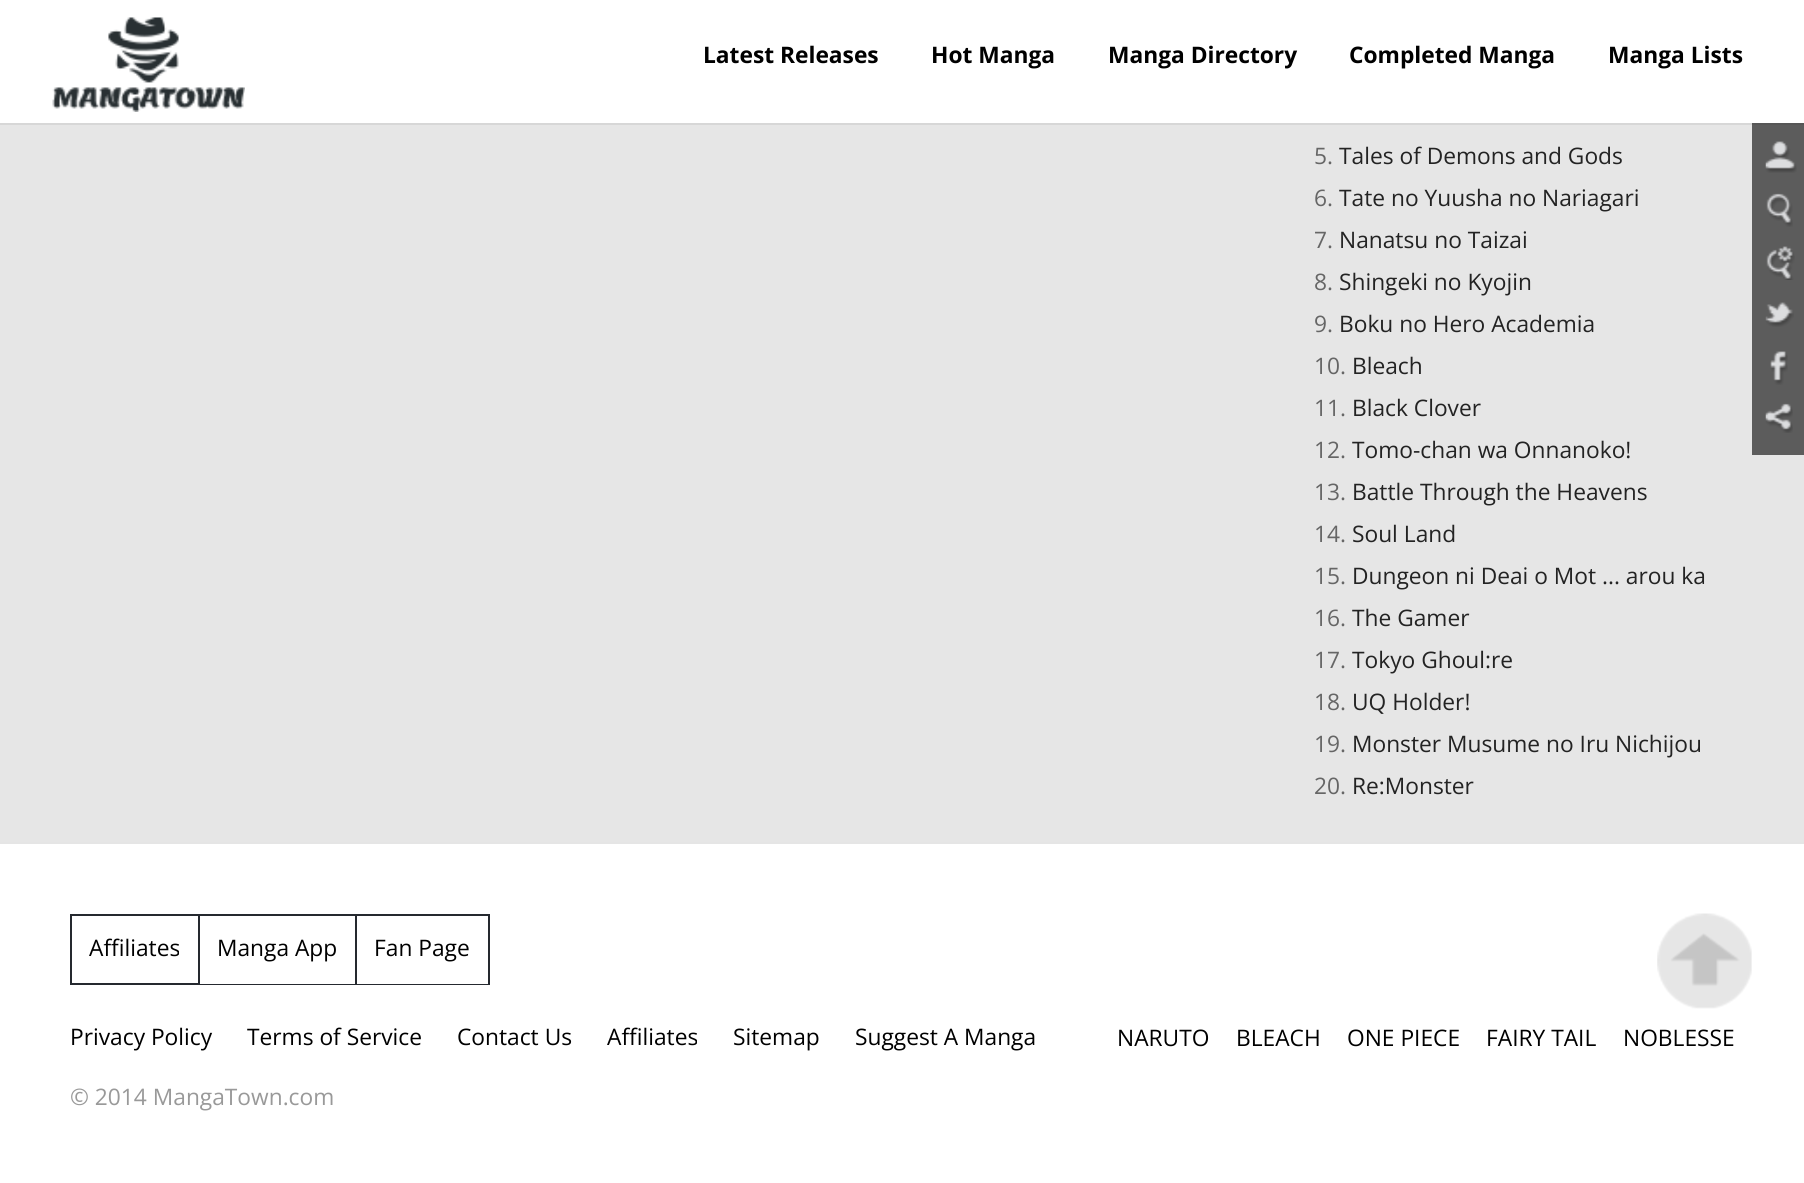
#include <cairo.h>
#include <math.h>
#include <stddef.h>


static void picture(cairo_t *cr, const char *path, double x, double y, double w, double h) {
    cairo_surface_t *image = cairo_image_surface_create_from_png(path);
    cairo_save(cr);
    cairo_set_source_surface(cr, image, x, y);
    cairo_rectangle(cr, x, y, w, h);
    cairo_fill(cr);
    cairo_restore(cr);
    cairo_surface_destroy(image);
}

int main(void) {
    cairo_surface_t *surface = cairo_image_surface_create(CAIRO_FORMAT_RGB24, 1804, 1183);
    cairo_t *cr = cairo_create(surface);
    cairo_font_options_t *options = cairo_font_options_create();
    cairo_font_options_set_hint_metrics(options, CAIRO_HINT_METRICS_OFF);
    cairo_font_options_set_hint_style(options, CAIRO_HINT_STYLE_NONE);
    cairo_set_font_options(cr, options);
    cairo_set_miter_limit(cr, 4);
    cairo_set_source_rgb(cr, 1, 1, 1);
    cairo_paint(cr);
    cairo_set_source_rgb(cr, 0.843, 0.843, 0.843);
    cairo_rectangle(cr, 0, 123, 1752, 2);
    cairo_fill(cr);
    cairo_set_source_rgb(cr, 0.337, 0.337, 0.337);
    cairo_rectangle(cr, 1752, 123, 52, 2);
    cairo_fill(cr);
    picture(cr, "img1.png", 52, 17, 193, 95);
    cairo_select_font_face(cr, "Open Sans", CAIRO_FONT_SLANT_NORMAL, CAIRO_FONT_WEIGHT_BOLD);
    cairo_set_font_size(cr, 22.75);
    cairo_set_source_rgb(cr, 0, 0, 0);
    cairo_move_to(cr, 703, 63);
    cairo_show_text(cr, "Latest Releases");
    cairo_move_to(cr, 931, 63);
    cairo_show_text(cr, "Hot Manga");
    cairo_move_to(cr, 1108, 63);
    cairo_show_text(cr, "Manga Directory");
    cairo_move_to(cr, 1349, 63);
    cairo_show_text(cr, "Completed Manga");
    cairo_move_to(cr, 1608, 63);
    cairo_show_text(cr, "Manga Lists");
    cairo_set_source_rgb(cr, 0.902, 0.902, 0.902);
    cairo_rectangle(cr, 0, 125, 1804, 717);
    cairo_fill(cr);
    cairo_set_source_rgb(cr, 0.361, 0.361, 0.361);
    cairo_rectangle(cr, 1752, 125, 52, 330);
    cairo_fill(cr);
    cairo_select_font_face(cr, "Open Sans", CAIRO_FONT_SLANT_NORMAL, CAIRO_FONT_WEIGHT_NORMAL);
    cairo_set_source_rgb(cr, 0.4, 0.4, 0.4);
    cairo_move_to(cr, 1314, 164);
    cairo_show_text(cr, "5.");
    cairo_set_source_rgb(cr, 0.137, 0.137, 0.137);
    cairo_move_to(cr, 1339, 164);
    cairo_show_text(cr, "Tales of Demons and Gods");
    cairo_set_source_rgb(cr, 0.4, 0.4, 0.4);
    cairo_move_to(cr, 1314, 206);
    cairo_show_text(cr, "6.");
    cairo_set_source_rgb(cr, 0.137, 0.137, 0.137);
    cairo_move_to(cr, 1339, 206);
    cairo_show_text(cr, "Tate no Yuusha no Nariagari");
    cairo_set_source_rgb(cr, 0.4, 0.4, 0.4);
    cairo_move_to(cr, 1314, 248);
    cairo_show_text(cr, "7.");
    cairo_set_source_rgb(cr, 0.137, 0.137, 0.137);
    cairo_move_to(cr, 1339, 248);
    cairo_show_text(cr, "Nanatsu no Taizai");
    cairo_set_source_rgb(cr, 0.4, 0.4, 0.4);
    cairo_move_to(cr, 1314, 290);
    cairo_show_text(cr, "8.");
    cairo_set_source_rgb(cr, 0.137, 0.137, 0.137);
    cairo_move_to(cr, 1339, 290);
    cairo_show_text(cr, "Shingeki no Kyojin");
    cairo_set_source_rgb(cr, 0.4, 0.4, 0.4);
    cairo_move_to(cr, 1314, 332);
    cairo_show_text(cr, "9.");
    cairo_set_source_rgb(cr, 0.137, 0.137, 0.137);
    cairo_move_to(cr, 1339, 332);
    cairo_show_text(cr, "Boku no Hero Academia");
    cairo_set_source_rgb(cr, 0.4, 0.4, 0.4);
    cairo_move_to(cr, 1314, 374);
    cairo_show_text(cr, "10.");
    cairo_set_source_rgb(cr, 0.137, 0.137, 0.137);
    cairo_move_to(cr, 1352, 374);
    cairo_show_text(cr, "Bleach");
    cairo_set_source_rgb(cr, 0.4, 0.4, 0.4);
    cairo_move_to(cr, 1314, 416);
    cairo_show_text(cr, "11.");
    cairo_set_source_rgb(cr, 0.137, 0.137, 0.137);
    cairo_move_to(cr, 1352, 416);
    cairo_show_text(cr, "Black Clover");
    cairo_set_source_rgb(cr, 0.4, 0.4, 0.4);
    cairo_move_to(cr, 1314, 458);
    cairo_show_text(cr, "12.");
    cairo_set_source_rgb(cr, 0.137, 0.137, 0.137);
    cairo_move_to(cr, 1352, 458);
    cairo_show_text(cr, "Tomo-chan wa Onnanoko!");
    cairo_set_source_rgb(cr, 0.4, 0.4, 0.4);
    cairo_move_to(cr, 1314, 500);
    cairo_show_text(cr, "13.");
    cairo_set_source_rgb(cr, 0.137, 0.137, 0.137);
    cairo_move_to(cr, 1352, 500);
    cairo_show_text(cr, "Battle Through the Heavens");
    cairo_set_source_rgb(cr, 0.4, 0.4, 0.4);
    cairo_move_to(cr, 1314, 542);
    cairo_show_text(cr, "14.");
    cairo_set_source_rgb(cr, 0.137, 0.137, 0.137);
    cairo_move_to(cr, 1352, 542);
    cairo_show_text(cr, "Soul Land");
    cairo_set_source_rgb(cr, 0.4, 0.4, 0.4);
    cairo_move_to(cr, 1314, 584);
    cairo_show_text(cr, "15.");
    cairo_set_source_rgb(cr, 0.137, 0.137, 0.137);
    cairo_move_to(cr, 1352, 584);
    cairo_show_text(cr, "Dungeon ni Deai o Mot ... arou ka");
    cairo_set_source_rgb(cr, 0.4, 0.4, 0.4);
    cairo_move_to(cr, 1314, 626);
    cairo_show_text(cr, "16.");
    cairo_set_source_rgb(cr, 0.137, 0.137, 0.137);
    cairo_move_to(cr, 1352, 626);
    cairo_show_text(cr, "The Gamer");
    cairo_set_source_rgb(cr, 0.4, 0.4, 0.4);
    cairo_move_to(cr, 1314, 668);
    cairo_show_text(cr, "17.");
    cairo_set_source_rgb(cr, 0.137, 0.137, 0.137);
    cairo_move_to(cr, 1352, 668);
    cairo_show_text(cr, "Tokyo Ghoul:re");
    cairo_set_source_rgb(cr, 0.4, 0.4, 0.4);
    cairo_move_to(cr, 1314, 710);
    cairo_show_text(cr, "18.");
    cairo_set_source_rgb(cr, 0.137, 0.137, 0.137);
    cairo_move_to(cr, 1352, 710);
    cairo_show_text(cr, "UQ Holder!");
    cairo_set_source_rgb(cr, 0.4, 0.4, 0.4);
    cairo_move_to(cr, 1314, 752);
    cairo_show_text(cr, "19.");
    cairo_set_source_rgb(cr, 0.137, 0.137, 0.137);
    cairo_move_to(cr, 1352, 752);
    cairo_show_text(cr, "Monster Musume no Iru Nichijou");
    cairo_set_source_rgb(cr, 0.4, 0.4, 0.4);
    cairo_move_to(cr, 1314, 794);
    cairo_show_text(cr, "20.");
    cairo_set_source_rgb(cr, 0.137, 0.137, 0.137);
    cairo_move_to(cr, 1352, 794);
    cairo_show_text(cr, "Re:Monster");
    picture(cr, "img2.png", 1765, 141, 32, 32);
    picture(cr, "img3.png", 1766, 193, 27, 34);
    picture(cr, "img4.png", 1766, 246, 29, 34);
    picture(cr, "img5.png", 1765, 302, 29, 25);
    picture(cr, "img6.png", 1770, 351, 18, 34);
    picture(cr, "img7.png", 1765, 403, 28, 30);
    picture(cr, "img8.png", 1657, 913, 95, 96);
    cairo_set_source_rgb(cr, 0.898, 0.898, 0.898);
    cairo_rectangle(cr, 0, 842, 1804, 2);
    cairo_fill(cr);
    cairo_rectangle(cr, 71, 915, 128, 69);
    cairo_set_source_rgb(cr, 0.145, 0.161, 0.184);
    cairo_stroke(cr);
    cairo_set_source_rgb(cr, 0, 0, 0);
    cairo_move_to(cr, 89, 956);
    cairo_show_text(cr, "Affiliates");
    cairo_set_source_rgb(cr, 0.145, 0.161, 0.184);
    cairo_rectangle(cr, 200, 914, 290, 2);
    cairo_fill(cr);
    cairo_rectangle(cr, 355, 914, 2, 71);
    cairo_fill(cr);
    cairo_rectangle(cr, 200, 984, 157, 1);
    cairo_fill(cr);
    cairo_set_source_rgb(cr, 0, 0, 0);
    cairo_move_to(cr, 217, 956);
    cairo_show_text(cr, "Manga App");
    cairo_set_source_rgb(cr, 0.145, 0.161, 0.184);
    cairo_rectangle(cr, 488, 914, 2, 71);
    cairo_fill(cr);
    cairo_rectangle(cr, 357, 984, 133, 1);
    cairo_fill(cr);
    cairo_set_source_rgb(cr, 0, 0, 0);
    cairo_move_to(cr, 374, 956);
    cairo_show_text(cr, "Fan Page");
    cairo_move_to(cr, 70, 1045);
    cairo_show_text(cr, "Privacy Policy");
    cairo_move_to(cr, 247, 1045);
    cairo_show_text(cr, "Terms of Service");
    cairo_move_to(cr, 457, 1045);
    cairo_show_text(cr, "Contact Us");
    cairo_move_to(cr, 607, 1045);
    cairo_show_text(cr, "Affiliates");
    cairo_move_to(cr, 733, 1045);
    cairo_show_text(cr, "Sitemap");
    cairo_move_to(cr, 855, 1045);
    cairo_show_text(cr, "Suggest A Manga");
    cairo_set_source_rgb(cr, 0.6, 0.6, 0.6);
    cairo_move_to(cr, 70, 1105);
    cairo_show_text(cr, "© 2014 MangaTown.com");
    cairo_set_source_rgb(cr, 0, 0, 0);
    cairo_move_to(cr, 1117, 1046);
    cairo_show_text(cr, "NARUTO");
    cairo_move_to(cr, 1236, 1046);
    cairo_show_text(cr, "BLEACH");
    cairo_move_to(cr, 1347, 1046);
    cairo_show_text(cr, "ONE PIECE");
    cairo_move_to(cr, 1486, 1046);
    cairo_show_text(cr, "FAIRY TAIL");
    cairo_move_to(cr, 1623, 1046);
    cairo_show_text(cr, "NOBLESSE");
    cairo_surface_write_to_png(surface, "page.png");
    cairo_font_options_destroy(options);
    cairo_destroy(cr);
    cairo_surface_destroy(surface);
    return 0;
}
